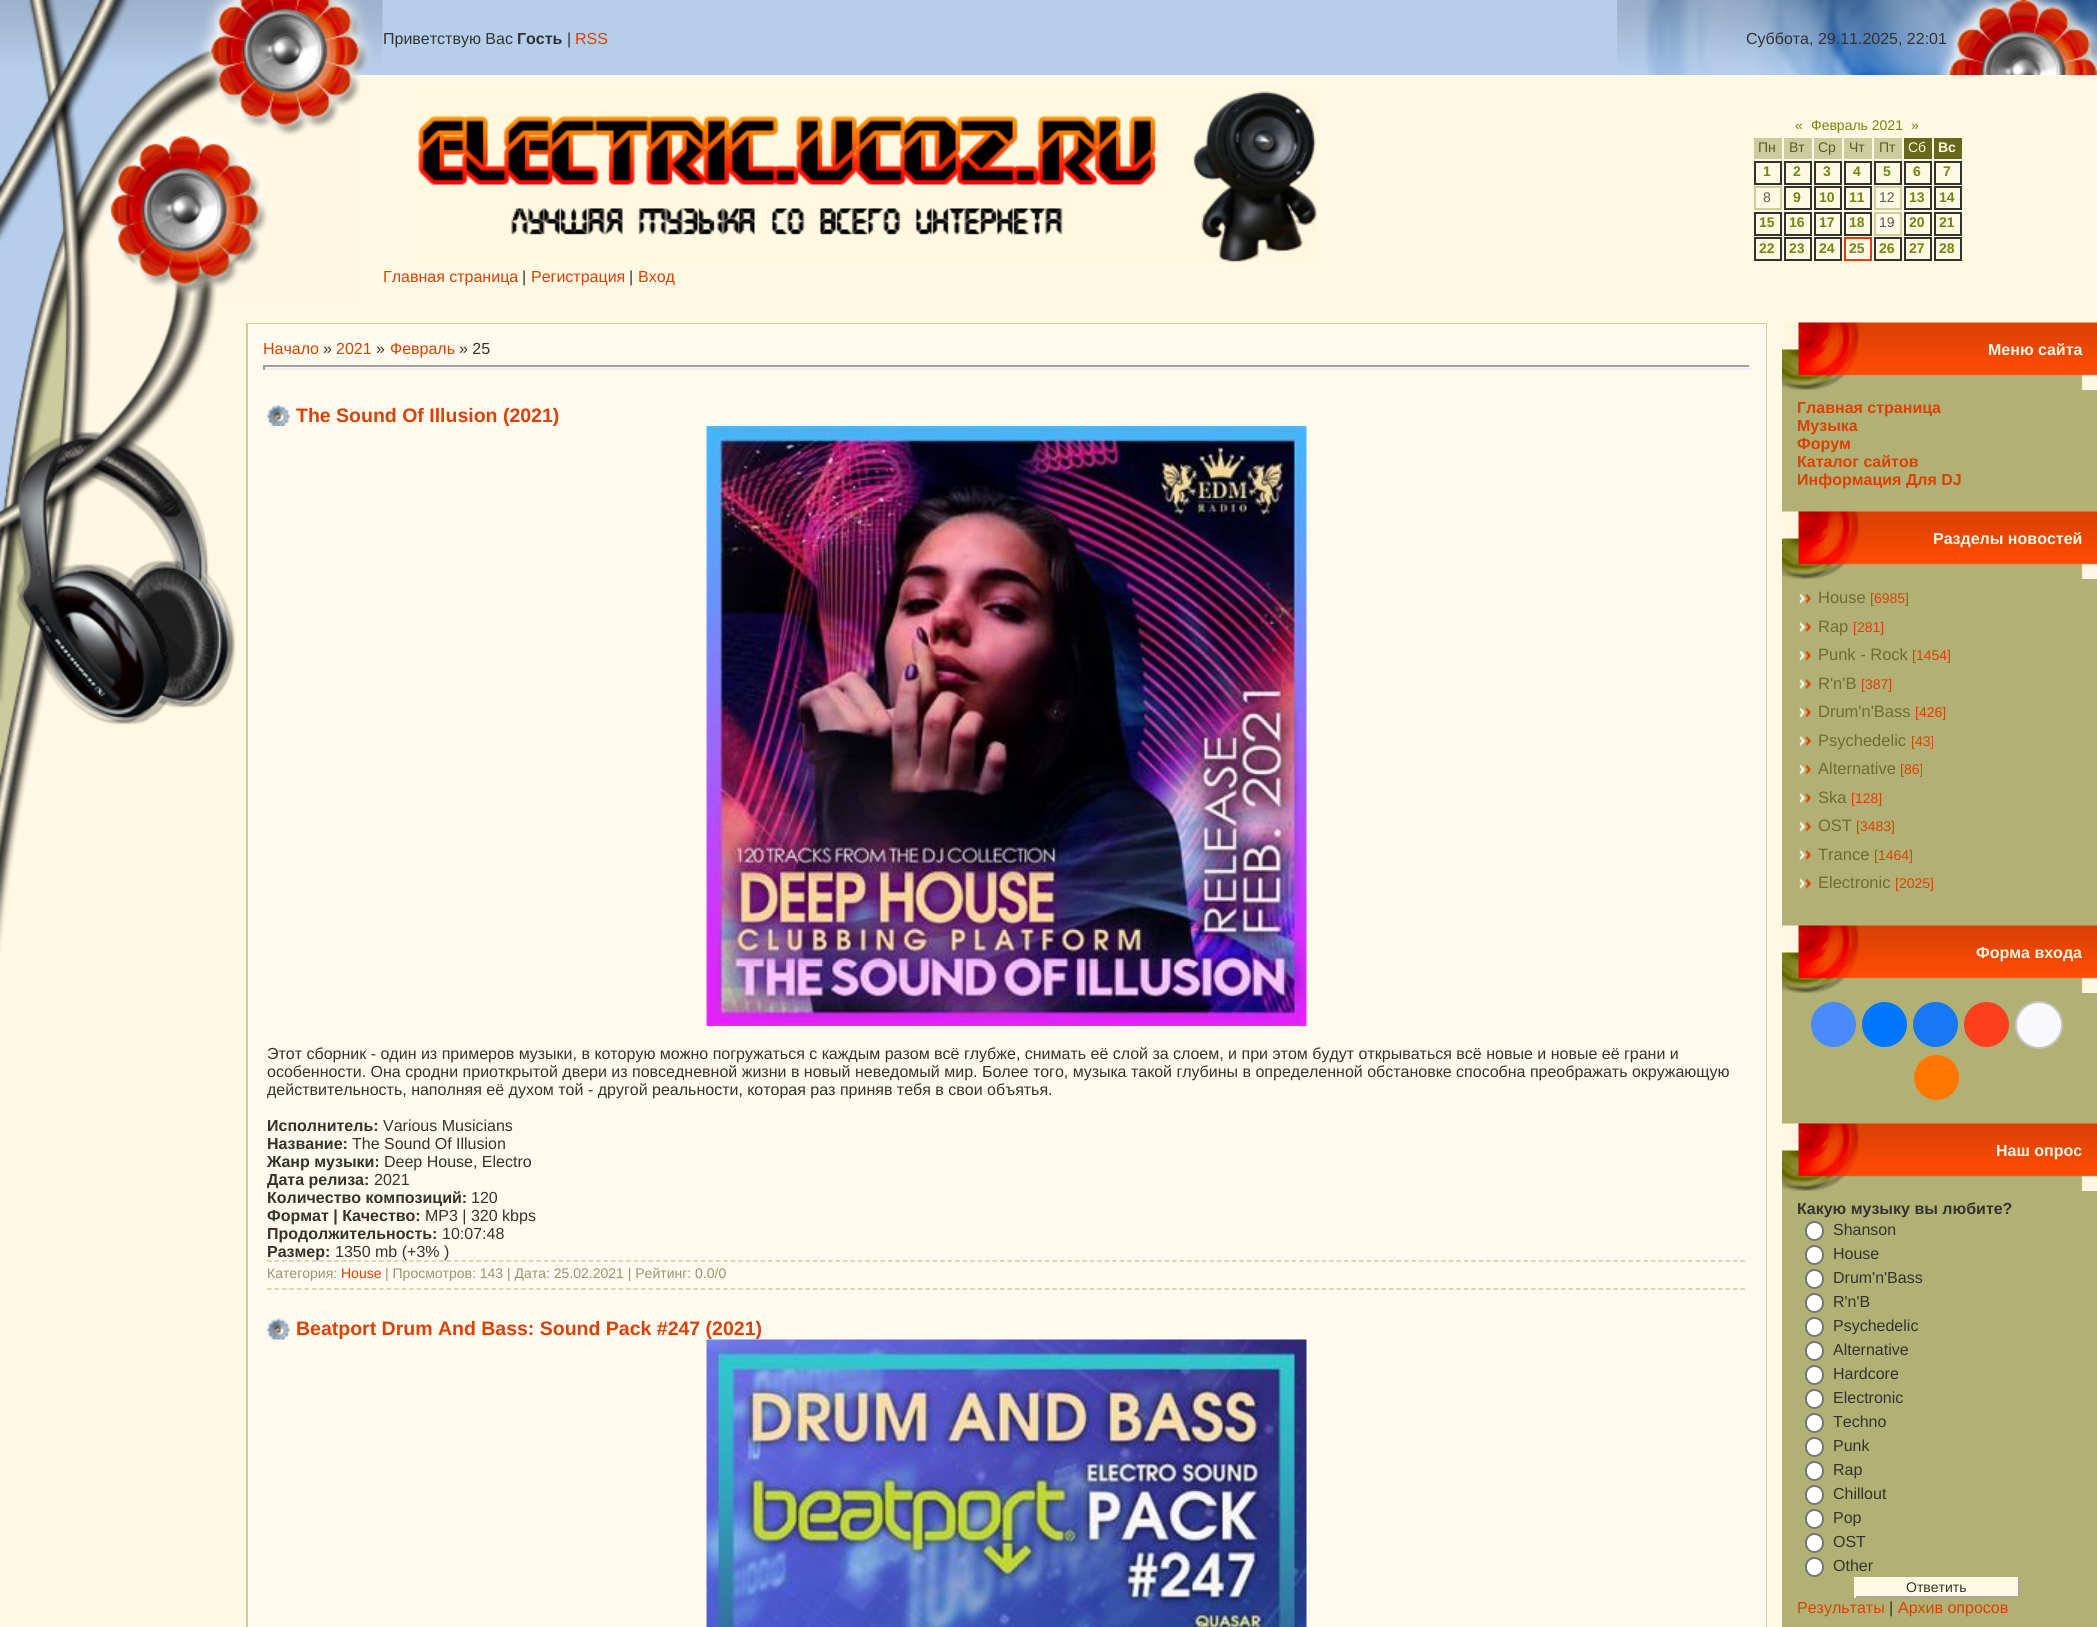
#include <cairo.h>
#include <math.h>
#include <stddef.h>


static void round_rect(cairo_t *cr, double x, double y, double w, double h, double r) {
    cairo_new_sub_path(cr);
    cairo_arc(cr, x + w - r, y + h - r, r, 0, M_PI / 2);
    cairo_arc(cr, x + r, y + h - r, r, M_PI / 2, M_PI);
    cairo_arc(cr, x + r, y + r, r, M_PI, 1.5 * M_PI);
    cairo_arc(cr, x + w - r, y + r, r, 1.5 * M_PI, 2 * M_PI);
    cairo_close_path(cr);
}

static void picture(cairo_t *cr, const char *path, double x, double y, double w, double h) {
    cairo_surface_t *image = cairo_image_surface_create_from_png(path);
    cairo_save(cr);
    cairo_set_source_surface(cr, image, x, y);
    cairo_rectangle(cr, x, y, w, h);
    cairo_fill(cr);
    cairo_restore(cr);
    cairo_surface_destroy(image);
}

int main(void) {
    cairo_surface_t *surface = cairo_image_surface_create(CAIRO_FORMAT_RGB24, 2097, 1627);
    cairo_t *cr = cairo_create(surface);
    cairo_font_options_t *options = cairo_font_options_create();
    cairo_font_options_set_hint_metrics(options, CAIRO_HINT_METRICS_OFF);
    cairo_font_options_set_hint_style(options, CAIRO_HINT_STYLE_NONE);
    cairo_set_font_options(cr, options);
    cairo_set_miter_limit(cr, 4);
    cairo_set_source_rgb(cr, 1, 0.969, 0.886);
    cairo_paint(cr);
    cairo_set_source_rgb(cr, 0.714, 0.808, 0.922);
    cairo_rectangle(cr, 382, 0, 1235, 75);
    cairo_fill(cr);
    picture(cr, "img1.png", 0, 0, 383, 75);
    cairo_select_font_face(cr, "Liberation Sans", CAIRO_FONT_SLANT_NORMAL, CAIRO_FONT_WEIGHT_NORMAL);
    cairo_set_font_size(cr, 16);
    cairo_set_source_rgb(cr, 0.2, 0.2, 0.176);
    cairo_move_to(cr, 383, 44);
    cairo_show_text(cr, "Приветствую Вас");
    cairo_select_font_face(cr, "Liberation Sans", CAIRO_FONT_SLANT_NORMAL, CAIRO_FONT_WEIGHT_BOLD);
    cairo_move_to(cr, 517, 44);
    cairo_show_text(cr, "Гость");
    cairo_select_font_face(cr, "Liberation Sans", CAIRO_FONT_SLANT_NORMAL, CAIRO_FONT_WEIGHT_NORMAL);
    cairo_move_to(cr, 567, 44);
    cairo_show_text(cr, "|");
    cairo_set_source_rgb(cr, 0.859, 0.255, 0.016);
    cairo_move_to(cr, 575, 44);
    cairo_show_text(cr, "RSS");
    picture(cr, "img2.png", 1617, 0, 480, 75);
    cairo_set_source_rgb(cr, 0.2, 0.2, 0.176);
    cairo_move_to(cr, 1746, 44);
    cairo_show_text(cr, "Суббота, 29.11.2025, 22:01");
    picture(cr, "img3.png", 0, 75, 361, 225);
    cairo_set_font_size(cr, 14);
    cairo_set_source_rgb(cr, 0.443, 0.525, 0.067);
    cairo_move_to(cr, 1795, 130);
    cairo_show_text(cr, "«");
    cairo_move_to(cr, 1811, 130);
    cairo_show_text(cr, "Февраль 2021");
    cairo_move_to(cr, 1911, 130);
    cairo_show_text(cr, "»");
    cairo_set_source_rgb(cr, 0.8, 0.8, 0.62);
    cairo_rectangle(cr, 1754, 138, 28, 21);
    cairo_fill(cr);
    cairo_set_source_rgb(cr, 0.333, 0.365, 0.141);
    cairo_move_to(cr, 1758, 152);
    cairo_show_text(cr, "Пн");
    cairo_set_source_rgb(cr, 0.8, 0.8, 0.62);
    cairo_rectangle(cr, 1784, 138, 28, 21);
    cairo_fill(cr);
    cairo_set_source_rgb(cr, 0.333, 0.365, 0.141);
    cairo_move_to(cr, 1789, 152);
    cairo_show_text(cr, "Вт");
    cairo_set_source_rgb(cr, 0.8, 0.8, 0.62);
    cairo_rectangle(cr, 1814, 138, 28, 21);
    cairo_fill(cr);
    cairo_set_source_rgb(cr, 0.333, 0.365, 0.141);
    cairo_move_to(cr, 1818, 152);
    cairo_show_text(cr, "Ср");
    cairo_set_source_rgb(cr, 0.8, 0.8, 0.62);
    cairo_rectangle(cr, 1844, 138, 28, 21);
    cairo_fill(cr);
    cairo_set_source_rgb(cr, 0.333, 0.365, 0.141);
    cairo_move_to(cr, 1849, 152);
    cairo_show_text(cr, "Чт");
    cairo_set_source_rgb(cr, 0.8, 0.8, 0.62);
    cairo_rectangle(cr, 1874, 138, 28, 21);
    cairo_fill(cr);
    cairo_set_source_rgb(cr, 0.333, 0.365, 0.141);
    cairo_move_to(cr, 1879, 152);
    cairo_show_text(cr, "Пт");
    cairo_set_source_rgb(cr, 0.408, 0.408, 0.102);
    cairo_rectangle(cr, 1904, 138, 28, 21);
    cairo_fill(cr);
    cairo_set_source_rgb(cr, 1, 0.969, 0.886);
    cairo_move_to(cr, 1908, 152);
    cairo_show_text(cr, "Сб");
    cairo_set_source_rgb(cr, 0.408, 0.408, 0.102);
    cairo_rectangle(cr, 1934, 138, 28, 21);
    cairo_fill(cr);
    cairo_select_font_face(cr, "Liberation Sans", CAIRO_FONT_SLANT_NORMAL, CAIRO_FONT_WEIGHT_BOLD);
    cairo_set_source_rgb(cr, 1, 0.969, 0.886);
    cairo_move_to(cr, 1938, 152);
    cairo_show_text(cr, "Вс");
    cairo_rectangle(cr, 1755, 162, 26, 22);
    cairo_set_source_rgb(cr, 0.2, 0.2, 0.176);
    cairo_stroke(cr);
    cairo_set_source_rgb(cr, 0.443, 0.525, 0.067);
    cairo_move_to(cr, 1763, 176);
    cairo_show_text(cr, "1");
    cairo_rectangle(cr, 1785, 162, 26, 22);
    cairo_set_source_rgb(cr, 0.2, 0.2, 0.176);
    cairo_stroke(cr);
    cairo_set_source_rgb(cr, 0.443, 0.525, 0.067);
    cairo_move_to(cr, 1793, 176);
    cairo_show_text(cr, "2");
    cairo_rectangle(cr, 1815, 162, 26, 22);
    cairo_set_source_rgb(cr, 0.2, 0.2, 0.176);
    cairo_stroke(cr);
    cairo_set_source_rgb(cr, 0.443, 0.525, 0.067);
    cairo_move_to(cr, 1823, 176);
    cairo_show_text(cr, "3");
    cairo_rectangle(cr, 1845, 162, 26, 22);
    cairo_set_source_rgb(cr, 0.2, 0.2, 0.176);
    cairo_stroke(cr);
    cairo_set_source_rgb(cr, 0.443, 0.525, 0.067);
    cairo_move_to(cr, 1853, 176);
    cairo_show_text(cr, "4");
    cairo_rectangle(cr, 1875, 162, 26, 22);
    cairo_set_source_rgb(cr, 0.2, 0.2, 0.176);
    cairo_stroke(cr);
    cairo_set_source_rgb(cr, 0.443, 0.525, 0.067);
    cairo_move_to(cr, 1883, 176);
    cairo_show_text(cr, "5");
    cairo_rectangle(cr, 1905, 162, 26, 22);
    cairo_set_source_rgb(cr, 0.2, 0.2, 0.176);
    cairo_stroke(cr);
    cairo_set_source_rgb(cr, 0.443, 0.525, 0.067);
    cairo_move_to(cr, 1913, 176);
    cairo_show_text(cr, "6");
    cairo_rectangle(cr, 1935, 162, 26, 22);
    cairo_set_source_rgb(cr, 0.2, 0.2, 0.176);
    cairo_stroke(cr);
    cairo_set_source_rgb(cr, 0.443, 0.525, 0.067);
    cairo_move_to(cr, 1943, 176);
    cairo_show_text(cr, "7");
    cairo_rectangle(cr, 1755, 187, 26, 22);
    cairo_set_source_rgb(cr, 0.8, 0.8, 0.62);
    cairo_stroke(cr);
    cairo_select_font_face(cr, "Liberation Sans", CAIRO_FONT_SLANT_NORMAL, CAIRO_FONT_WEIGHT_NORMAL);
    cairo_set_source_rgb(cr, 0.369, 0.361, 0.306);
    cairo_move_to(cr, 1763, 202);
    cairo_show_text(cr, "8");
    cairo_rectangle(cr, 1785, 187, 26, 22);
    cairo_set_source_rgb(cr, 0.2, 0.2, 0.176);
    cairo_stroke(cr);
    cairo_select_font_face(cr, "Liberation Sans", CAIRO_FONT_SLANT_NORMAL, CAIRO_FONT_WEIGHT_BOLD);
    cairo_set_source_rgb(cr, 0.443, 0.525, 0.067);
    cairo_move_to(cr, 1793, 202);
    cairo_show_text(cr, "9");
    cairo_rectangle(cr, 1815, 187, 26, 22);
    cairo_set_source_rgb(cr, 0.2, 0.2, 0.176);
    cairo_stroke(cr);
    cairo_set_source_rgb(cr, 0.443, 0.525, 0.067);
    cairo_move_to(cr, 1819, 202);
    cairo_show_text(cr, "10");
    cairo_rectangle(cr, 1845, 187, 26, 22);
    cairo_set_source_rgb(cr, 0.2, 0.2, 0.176);
    cairo_stroke(cr);
    cairo_set_source_rgb(cr, 0.443, 0.525, 0.067);
    cairo_move_to(cr, 1849, 202);
    cairo_show_text(cr, "11");
    cairo_rectangle(cr, 1875, 187, 26, 22);
    cairo_set_source_rgb(cr, 0.8, 0.8, 0.62);
    cairo_stroke(cr);
    cairo_select_font_face(cr, "Liberation Sans", CAIRO_FONT_SLANT_NORMAL, CAIRO_FONT_WEIGHT_NORMAL);
    cairo_set_source_rgb(cr, 0.369, 0.361, 0.306);
    cairo_move_to(cr, 1879, 202);
    cairo_show_text(cr, "12");
    cairo_rectangle(cr, 1905, 187, 26, 22);
    cairo_set_source_rgb(cr, 0.2, 0.2, 0.176);
    cairo_stroke(cr);
    cairo_select_font_face(cr, "Liberation Sans", CAIRO_FONT_SLANT_NORMAL, CAIRO_FONT_WEIGHT_BOLD);
    cairo_set_source_rgb(cr, 0.443, 0.525, 0.067);
    cairo_move_to(cr, 1909, 202);
    cairo_show_text(cr, "13");
    cairo_rectangle(cr, 1935, 187, 26, 22);
    cairo_set_source_rgb(cr, 0.2, 0.2, 0.176);
    cairo_stroke(cr);
    cairo_set_source_rgb(cr, 0.443, 0.525, 0.067);
    cairo_move_to(cr, 1939, 202);
    cairo_show_text(cr, "14");
    cairo_rectangle(cr, 1755, 213, 26, 22);
    cairo_set_source_rgb(cr, 0.2, 0.2, 0.176);
    cairo_stroke(cr);
    cairo_set_source_rgb(cr, 0.443, 0.525, 0.067);
    cairo_move_to(cr, 1759, 227);
    cairo_show_text(cr, "15");
    cairo_rectangle(cr, 1785, 213, 26, 22);
    cairo_set_source_rgb(cr, 0.2, 0.2, 0.176);
    cairo_stroke(cr);
    cairo_set_source_rgb(cr, 0.443, 0.525, 0.067);
    cairo_move_to(cr, 1789, 227);
    cairo_show_text(cr, "16");
    cairo_rectangle(cr, 1815, 213, 26, 22);
    cairo_set_source_rgb(cr, 0.2, 0.2, 0.176);
    cairo_stroke(cr);
    cairo_set_source_rgb(cr, 0.443, 0.525, 0.067);
    cairo_move_to(cr, 1819, 227);
    cairo_show_text(cr, "17");
    cairo_rectangle(cr, 1845, 213, 26, 22);
    cairo_set_source_rgb(cr, 0.2, 0.2, 0.176);
    cairo_stroke(cr);
    cairo_set_source_rgb(cr, 0.443, 0.525, 0.067);
    cairo_move_to(cr, 1849, 227);
    cairo_show_text(cr, "18");
    cairo_rectangle(cr, 1875, 213, 26, 22);
    cairo_set_source_rgb(cr, 0.8, 0.8, 0.62);
    cairo_stroke(cr);
    cairo_select_font_face(cr, "Liberation Sans", CAIRO_FONT_SLANT_NORMAL, CAIRO_FONT_WEIGHT_NORMAL);
    cairo_set_source_rgb(cr, 0.369, 0.361, 0.306);
    cairo_move_to(cr, 1879, 227);
    cairo_show_text(cr, "19");
    cairo_rectangle(cr, 1905, 213, 26, 22);
    cairo_set_source_rgb(cr, 0.2, 0.2, 0.176);
    cairo_stroke(cr);
    cairo_select_font_face(cr, "Liberation Sans", CAIRO_FONT_SLANT_NORMAL, CAIRO_FONT_WEIGHT_BOLD);
    cairo_set_source_rgb(cr, 0.443, 0.525, 0.067);
    cairo_move_to(cr, 1909, 227);
    cairo_show_text(cr, "20");
    cairo_rectangle(cr, 1935, 213, 26, 22);
    cairo_set_source_rgb(cr, 0.2, 0.2, 0.176);
    cairo_stroke(cr);
    cairo_set_source_rgb(cr, 0.443, 0.525, 0.067);
    cairo_move_to(cr, 1939, 227);
    cairo_show_text(cr, "21");
    cairo_rectangle(cr, 1755, 238, 26, 22);
    cairo_set_source_rgb(cr, 0.2, 0.2, 0.176);
    cairo_stroke(cr);
    cairo_set_source_rgb(cr, 0.443, 0.525, 0.067);
    cairo_move_to(cr, 1759, 253);
    cairo_show_text(cr, "22");
    cairo_rectangle(cr, 1785, 238, 26, 22);
    cairo_set_source_rgb(cr, 0.2, 0.2, 0.176);
    cairo_stroke(cr);
    cairo_set_source_rgb(cr, 0.443, 0.525, 0.067);
    cairo_move_to(cr, 1789, 253);
    cairo_show_text(cr, "23");
    cairo_rectangle(cr, 1815, 238, 26, 22);
    cairo_set_source_rgb(cr, 0.2, 0.2, 0.176);
    cairo_stroke(cr);
    cairo_set_source_rgb(cr, 0.443, 0.525, 0.067);
    cairo_move_to(cr, 1819, 253);
    cairo_show_text(cr, "24");
    cairo_rectangle(cr, 1845, 238, 26, 22);
    cairo_set_source_rgb(cr, 0.859, 0.255, 0.016);
    cairo_stroke(cr);
    cairo_set_source_rgb(cr, 0.443, 0.525, 0.067);
    cairo_move_to(cr, 1849, 253);
    cairo_show_text(cr, "25");
    cairo_rectangle(cr, 1875, 238, 26, 22);
    cairo_set_source_rgb(cr, 0.2, 0.2, 0.176);
    cairo_stroke(cr);
    cairo_set_source_rgb(cr, 0.443, 0.525, 0.067);
    cairo_move_to(cr, 1879, 253);
    cairo_show_text(cr, "26");
    cairo_rectangle(cr, 1905, 238, 26, 22);
    cairo_set_source_rgb(cr, 0.2, 0.2, 0.176);
    cairo_stroke(cr);
    cairo_set_source_rgb(cr, 0.443, 0.525, 0.067);
    cairo_move_to(cr, 1909, 253);
    cairo_show_text(cr, "27");
    cairo_rectangle(cr, 1935, 238, 26, 22);
    cairo_set_source_rgb(cr, 0.2, 0.2, 0.176);
    cairo_stroke(cr);
    cairo_set_source_rgb(cr, 0.443, 0.525, 0.067);
    cairo_move_to(cr, 1939, 253);
    cairo_show_text(cr, "28");
    picture(cr, "img4.png", 418, 91, 900, 172);
    cairo_select_font_face(cr, "Liberation Sans", CAIRO_FONT_SLANT_NORMAL, CAIRO_FONT_WEIGHT_NORMAL);
    cairo_set_font_size(cr, 16);
    cairo_set_source_rgb(cr, 0.859, 0.255, 0.016);
    cairo_move_to(cr, 383, 282);
    cairo_show_text(cr, "Главная страница");
    cairo_set_source_rgb(cr, 0.2, 0.2, 0.176);
    cairo_move_to(cr, 522, 282);
    cairo_show_text(cr, "|");
    cairo_set_source_rgb(cr, 0.859, 0.255, 0.016);
    cairo_move_to(cr, 531, 282);
    cairo_show_text(cr, "Регистрация");
    cairo_set_source_rgb(cr, 0.2, 0.2, 0.176);
    cairo_move_to(cr, 629, 282);
    cairo_show_text(cr, "|");
    cairo_set_source_rgb(cr, 0.859, 0.255, 0.016);
    cairo_move_to(cr, 638, 282);
    cairo_show_text(cr, "Вход");
    picture(cr, "img5.png", 0, 300, 236, 653);
    cairo_rectangle(cr, 247, 324, 1519, 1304);
    cairo_set_source_rgb(cr, 0.8, 0.8, 0.62);
    cairo_stroke(cr);
    cairo_set_source_rgb(cr, 1, 0.98, 0.929);
    cairo_rectangle(cr, 248, 324, 1518, 1303);
    cairo_fill(cr);
    cairo_set_source_rgb(cr, 0.859, 0.255, 0.016);
    cairo_move_to(cr, 263, 354);
    cairo_show_text(cr, "Начало");
    cairo_set_source_rgb(cr, 0.2, 0.2, 0.176);
    cairo_move_to(cr, 323, 354);
    cairo_show_text(cr, "»");
    cairo_set_source_rgb(cr, 0.859, 0.255, 0.016);
    cairo_move_to(cr, 336, 354);
    cairo_show_text(cr, "2021");
    cairo_set_source_rgb(cr, 0.2, 0.2, 0.176);
    cairo_move_to(cr, 376, 354);
    cairo_show_text(cr, "»");
    cairo_set_source_rgb(cr, 0.859, 0.255, 0.016);
    cairo_move_to(cr, 390, 354);
    cairo_show_text(cr, "Февраль");
    cairo_set_source_rgb(cr, 0.2, 0.2, 0.176);
    cairo_move_to(cr, 459, 354);
    cairo_show_text(cr, "» 25");
    cairo_set_source_rgb(cr, 0.624, 0.624, 0.624);
    cairo_rectangle(cr, 263, 365, 1488, 2);
    cairo_fill(cr);
    cairo_set_source_rgb(cr, 0.933, 0.933, 0.933);
    cairo_rectangle(cr, 1749, 365, 2, 5);
    cairo_fill(cr);
    cairo_rectangle(cr, 263, 368, 1488, 2);
    cairo_fill(cr);
    cairo_set_source_rgb(cr, 0.624, 0.624, 0.624);
    cairo_rectangle(cr, 263, 365, 2, 5);
    cairo_fill(cr);
    picture(cr, "img6.png", 267, 405, 23, 21);
    cairo_select_font_face(cr, "Liberation Sans", CAIRO_FONT_SLANT_NORMAL, CAIRO_FONT_WEIGHT_BOLD);
    cairo_set_font_size(cr, 19.5);
    cairo_set_source_rgb(cr, 0.859, 0.255, 0.016);
    cairo_move_to(cr, 296, 422);
    cairo_show_text(cr, "The Sound Of Illusion (2021)");
    picture(cr, "img7.png", 706, 426, 601, 600);
    cairo_select_font_face(cr, "Liberation Sans", CAIRO_FONT_SLANT_NORMAL, CAIRO_FONT_WEIGHT_NORMAL);
    cairo_set_font_size(cr, 16);
    cairo_set_source_rgb(cr, 0.2, 0.2, 0.176);
    cairo_move_to(cr, 267, 1059);
    cairo_show_text(cr, "Этот сборник - один из примеров музыки, в которую можно погружаться с каждым разом всё глубже, снимать её слой за слоем, и при этом будут открываться всё новые и новые её грани и");
    cairo_move_to(cr, 267, 1077);
    cairo_show_text(cr, "особенности. Она сродни приоткрытой двери из повседневной жизни в новый неведомый мир. Более того, музыка такой глубины в определенной обстановке способна преображать окружающую");
    cairo_move_to(cr, 267, 1095);
    cairo_show_text(cr, "действительность, наполняя её духом той - другой реальности, которая раз приняв тебя в свои объятья.");
    cairo_select_font_face(cr, "Liberation Sans", CAIRO_FONT_SLANT_NORMAL, CAIRO_FONT_WEIGHT_BOLD);
    cairo_move_to(cr, 267, 1131);
    cairo_show_text(cr, "Исполнитель:");
    cairo_select_font_face(cr, "Liberation Sans", CAIRO_FONT_SLANT_NORMAL, CAIRO_FONT_WEIGHT_NORMAL);
    cairo_move_to(cr, 383, 1131);
    cairo_show_text(cr, "Various Musicians");
    cairo_select_font_face(cr, "Liberation Sans", CAIRO_FONT_SLANT_NORMAL, CAIRO_FONT_WEIGHT_BOLD);
    cairo_move_to(cr, 267, 1149);
    cairo_show_text(cr, "Название:");
    cairo_select_font_face(cr, "Liberation Sans", CAIRO_FONT_SLANT_NORMAL, CAIRO_FONT_WEIGHT_NORMAL);
    cairo_move_to(cr, 352, 1149);
    cairo_show_text(cr, "The Sound Of Illusion");
    cairo_select_font_face(cr, "Liberation Sans", CAIRO_FONT_SLANT_NORMAL, CAIRO_FONT_WEIGHT_BOLD);
    cairo_move_to(cr, 267, 1167);
    cairo_show_text(cr, "Жанр музыки:");
    cairo_select_font_face(cr, "Liberation Sans", CAIRO_FONT_SLANT_NORMAL, CAIRO_FONT_WEIGHT_NORMAL);
    cairo_move_to(cr, 384, 1167);
    cairo_show_text(cr, "Deep House, Electro");
    cairo_select_font_face(cr, "Liberation Sans", CAIRO_FONT_SLANT_NORMAL, CAIRO_FONT_WEIGHT_BOLD);
    cairo_move_to(cr, 267, 1185);
    cairo_show_text(cr, "Дата релиза:");
    cairo_select_font_face(cr, "Liberation Sans", CAIRO_FONT_SLANT_NORMAL, CAIRO_FONT_WEIGHT_NORMAL);
    cairo_move_to(cr, 374, 1185);
    cairo_show_text(cr, "2021");
    cairo_select_font_face(cr, "Liberation Sans", CAIRO_FONT_SLANT_NORMAL, CAIRO_FONT_WEIGHT_BOLD);
    cairo_move_to(cr, 267, 1203);
    cairo_show_text(cr, "Количество композиций:");
    cairo_select_font_face(cr, "Liberation Sans", CAIRO_FONT_SLANT_NORMAL, CAIRO_FONT_WEIGHT_NORMAL);
    cairo_move_to(cr, 471, 1203);
    cairo_show_text(cr, "120");
    cairo_select_font_face(cr, "Liberation Sans", CAIRO_FONT_SLANT_NORMAL, CAIRO_FONT_WEIGHT_BOLD);
    cairo_move_to(cr, 267, 1221);
    cairo_show_text(cr, "Формат | Качество:");
    cairo_select_font_face(cr, "Liberation Sans", CAIRO_FONT_SLANT_NORMAL, CAIRO_FONT_WEIGHT_NORMAL);
    cairo_move_to(cr, 425, 1221);
    cairo_show_text(cr, "MP3 | 320 kbps");
    cairo_select_font_face(cr, "Liberation Sans", CAIRO_FONT_SLANT_NORMAL, CAIRO_FONT_WEIGHT_BOLD);
    cairo_move_to(cr, 267, 1239);
    cairo_show_text(cr, "Продолжительность:");
    cairo_select_font_face(cr, "Liberation Sans", CAIRO_FONT_SLANT_NORMAL, CAIRO_FONT_WEIGHT_NORMAL);
    cairo_move_to(cr, 442, 1239);
    cairo_show_text(cr, "10:07:48");
    cairo_new_path(cr);
    cairo_move_to(cr, 267, 1261);
    cairo_line_to(cr, 1746, 1261);
    cairo_set_source_rgb(cr, 0.8, 0.8, 0.62);
    cairo_set_line_width(cr, 1.5);
    cairo_set_dash(cr, (double[]){4.5, 2.98}, 2, 0);
    cairo_stroke(cr);
    cairo_select_font_face(cr, "Liberation Sans", CAIRO_FONT_SLANT_NORMAL, CAIRO_FONT_WEIGHT_BOLD);
    cairo_set_source_rgb(cr, 0.2, 0.2, 0.176);
    cairo_move_to(cr, 267, 1257);
    cairo_show_text(cr, "Размер:");
    cairo_select_font_face(cr, "Liberation Sans", CAIRO_FONT_SLANT_NORMAL, CAIRO_FONT_WEIGHT_NORMAL);
    cairo_move_to(cr, 335, 1257);
    cairo_show_text(cr, "1350 mb (+3% )");
    cairo_new_path(cr);
    cairo_move_to(cr, 267, 1289);
    cairo_line_to(cr, 1746, 1289);
    cairo_set_source_rgb(cr, 0.8, 0.8, 0.62);
    cairo_stroke(cr);
    cairo_set_font_size(cr, 14);
    cairo_set_source_rgb(cr, 0.584, 0.584, 0.451);
    cairo_move_to(cr, 267, 1278);
    cairo_show_text(cr, "Категория:");
    cairo_set_source_rgb(cr, 0.859, 0.255, 0.016);
    cairo_move_to(cr, 341, 1278);
    cairo_show_text(cr, "House");
    cairo_set_source_rgb(cr, 0.584, 0.584, 0.451);
    cairo_move_to(cr, 385, 1278);
    cairo_show_text(cr, "| Просмотров: 143 | Дата: 25.02.2021 | Рейтинг: 0.0/0");
    picture(cr, "img8.png", 267, 1318, 23, 22);
    cairo_select_font_face(cr, "Liberation Sans", CAIRO_FONT_SLANT_NORMAL, CAIRO_FONT_WEIGHT_BOLD);
    cairo_set_font_size(cr, 19.5);
    cairo_set_source_rgb(cr, 0.859, 0.255, 0.016);
    cairo_move_to(cr, 296, 1335);
    cairo_show_text(cr, "Beatport Drum And Bass: Sound Pack #247 (2021)");
    picture(cr, "img9.png", 706, 1339, 601, 288);
    cairo_set_source_rgb(cr, 0.694, 0.694, 0.463);
    cairo_rectangle(cr, 1782, 374, 315, 138);
    cairo_fill(cr);
    picture(cr, "img10.png", 1782, 322, 315, 68);
    cairo_set_font_size(cr, 16);
    cairo_set_source_rgb(cr, 1, 0.969, 0.886);
    cairo_move_to(cr, 1988, 355);
    cairo_show_text(cr, "Меню сайта");
    cairo_set_source_rgb(cr, 0.859, 0.255, 0.016);
    cairo_move_to(cr, 1797, 413);
    cairo_show_text(cr, "Главная страница");
    cairo_move_to(cr, 1797, 431);
    cairo_show_text(cr, "Музыка");
    cairo_move_to(cr, 1797, 449);
    cairo_show_text(cr, "Форум");
    cairo_move_to(cr, 1797, 467);
    cairo_show_text(cr, "Каталог сайтов");
    cairo_move_to(cr, 1797, 485);
    cairo_show_text(cr, "Информация Для DJ");
    cairo_set_source_rgb(cr, 0.694, 0.694, 0.463);
    cairo_rectangle(cr, 1782, 563, 315, 363);
    cairo_fill(cr);
    picture(cr, "img11.png", 1782, 511, 315, 68);
    cairo_set_source_rgb(cr, 1, 0.969, 0.886);
    cairo_move_to(cr, 1933, 544);
    cairo_show_text(cr, "Разделы новостей");
    picture(cr, "img12.png", 1799, 593, 12, 11);
    cairo_select_font_face(cr, "Liberation Sans", CAIRO_FONT_SLANT_NORMAL, CAIRO_FONT_WEIGHT_NORMAL);
    cairo_set_font_size(cr, 16.5);
    cairo_set_source_rgb(cr, 0.427, 0.427, 0.176);
    cairo_move_to(cr, 1818, 603);
    cairo_show_text(cr, "House");
    cairo_set_font_size(cr, 14);
    cairo_set_source_rgb(cr, 0.859, 0.255, 0.016);
    cairo_move_to(cr, 1870, 603);
    cairo_show_text(cr, "[6985]");
    picture(cr, "img13.png", 1799, 622, 12, 10);
    cairo_set_font_size(cr, 16.5);
    cairo_set_source_rgb(cr, 0.427, 0.427, 0.176);
    cairo_move_to(cr, 1818, 632);
    cairo_show_text(cr, "Rap");
    cairo_set_font_size(cr, 14);
    cairo_set_source_rgb(cr, 0.859, 0.255, 0.016);
    cairo_move_to(cr, 1853, 632);
    cairo_show_text(cr, "[281]");
    picture(cr, "img12.png", 1799, 650, 12, 11);
    cairo_set_font_size(cr, 16.5);
    cairo_set_source_rgb(cr, 0.427, 0.427, 0.176);
    cairo_move_to(cr, 1818, 660);
    cairo_show_text(cr, "Punk - Rock");
    cairo_set_font_size(cr, 14);
    cairo_set_source_rgb(cr, 0.859, 0.255, 0.016);
    cairo_move_to(cr, 1912, 660);
    cairo_show_text(cr, "[1454]");
    picture(cr, "img13.png", 1799, 679, 12, 10);
    cairo_set_font_size(cr, 16.5);
    cairo_set_source_rgb(cr, 0.427, 0.427, 0.176);
    cairo_move_to(cr, 1818, 689);
    cairo_show_text(cr, "R'n'B");
    cairo_set_font_size(cr, 14);
    cairo_set_source_rgb(cr, 0.859, 0.255, 0.016);
    cairo_move_to(cr, 1861, 689);
    cairo_show_text(cr, "[387]");
    picture(cr, "img12.png", 1799, 707, 12, 11);
    cairo_set_font_size(cr, 16.5);
    cairo_set_source_rgb(cr, 0.427, 0.427, 0.176);
    cairo_move_to(cr, 1818, 717);
    cairo_show_text(cr, "Drum'n'Bass");
    cairo_set_font_size(cr, 14);
    cairo_set_source_rgb(cr, 0.859, 0.255, 0.016);
    cairo_move_to(cr, 1915, 717);
    cairo_show_text(cr, "[426]");
    picture(cr, "img13.png", 1799, 736, 12, 10);
    cairo_set_font_size(cr, 16.5);
    cairo_set_source_rgb(cr, 0.427, 0.427, 0.176);
    cairo_move_to(cr, 1818, 746);
    cairo_show_text(cr, "Psychedelic");
    cairo_set_font_size(cr, 14);
    cairo_set_source_rgb(cr, 0.859, 0.255, 0.016);
    cairo_move_to(cr, 1911, 746);
    cairo_show_text(cr, "[43]");
    picture(cr, "img12.png", 1799, 764, 12, 11);
    cairo_set_font_size(cr, 16.5);
    cairo_set_source_rgb(cr, 0.427, 0.427, 0.176);
    cairo_move_to(cr, 1818, 774);
    cairo_show_text(cr, "Alternative");
    cairo_set_font_size(cr, 14);
    cairo_set_source_rgb(cr, 0.859, 0.255, 0.016);
    cairo_move_to(cr, 1900, 774);
    cairo_show_text(cr, "[86]");
    picture(cr, "img13.png", 1799, 793, 12, 10);
    cairo_set_font_size(cr, 16.5);
    cairo_set_source_rgb(cr, 0.427, 0.427, 0.176);
    cairo_move_to(cr, 1818, 803);
    cairo_show_text(cr, "Ska");
    cairo_set_font_size(cr, 14);
    cairo_set_source_rgb(cr, 0.859, 0.255, 0.016);
    cairo_move_to(cr, 1851, 803);
    cairo_show_text(cr, "[128]");
    picture(cr, "img12.png", 1799, 821, 12, 11);
    cairo_set_font_size(cr, 16.5);
    cairo_set_source_rgb(cr, 0.427, 0.427, 0.176);
    cairo_move_to(cr, 1818, 831);
    cairo_show_text(cr, "OST");
    cairo_set_font_size(cr, 14);
    cairo_set_source_rgb(cr, 0.859, 0.255, 0.016);
    cairo_move_to(cr, 1856, 831);
    cairo_show_text(cr, "[3483]");
    picture(cr, "img13.png", 1799, 850, 12, 10);
    cairo_set_font_size(cr, 16.5);
    cairo_set_source_rgb(cr, 0.427, 0.427, 0.176);
    cairo_move_to(cr, 1818, 860);
    cairo_show_text(cr, "Trance");
    cairo_set_font_size(cr, 14);
    cairo_set_source_rgb(cr, 0.859, 0.255, 0.016);
    cairo_move_to(cr, 1874, 860);
    cairo_show_text(cr, "[1464]");
    picture(cr, "img12.png", 1799, 878, 12, 11);
    cairo_set_font_size(cr, 16.5);
    cairo_set_source_rgb(cr, 0.427, 0.427, 0.176);
    cairo_move_to(cr, 1818, 888);
    cairo_show_text(cr, "Electronic");
    cairo_set_font_size(cr, 14);
    cairo_set_source_rgb(cr, 0.859, 0.255, 0.016);
    cairo_move_to(cr, 1895, 888);
    cairo_show_text(cr, "[2025]");
    cairo_set_source_rgb(cr, 0.694, 0.694, 0.463);
    cairo_rectangle(cr, 1782, 977, 315, 147);
    cairo_fill(cr);
    picture(cr, "img11.png", 1782, 925, 315, 68);
    cairo_select_font_face(cr, "Liberation Sans", CAIRO_FONT_SLANT_NORMAL, CAIRO_FONT_WEIGHT_BOLD);
    cairo_set_font_size(cr, 16);
    cairo_set_source_rgb(cr, 1, 0.969, 0.886);
    cairo_move_to(cr, 1976, 958);
    cairo_show_text(cr, "Форма входа");
    cairo_set_source_rgb(cr, 0.286, 0.545, 0.98);
    cairo_new_path(cr);
    cairo_arc(cr, 1833.5, 1024.5, 22.5, 0, 2 * M_PI);
    cairo_fill(cr);
    cairo_set_source_rgb(cr, 0, 0.467, 1);
    cairo_arc(cr, 1884.5, 1024.5, 22.5, 0, 2 * M_PI);
    cairo_fill(cr);
    cairo_set_source_rgb(cr, 0.094, 0.467, 0.949);
    cairo_arc(cr, 1935.5, 1024.5, 22.5, 0, 2 * M_PI);
    cairo_fill(cr);
    cairo_set_source_rgb(cr, 0.988, 0.247, 0.114);
    cairo_arc(cr, 1986.5, 1024.5, 22.5, 0, 2 * M_PI);
    cairo_fill(cr);
    cairo_set_source_rgb(cr, 0.973, 0.973, 0.988);
    cairo_arc(cr, 2039, 1025, 23, 0, 2 * M_PI);
    cairo_fill_preserve(cr);
    cairo_set_source_rgb(cr, 0.769, 0.769, 0.769);
    cairo_set_line_width(cr, 2);
    cairo_set_dash(cr, NULL, 0, 0);
    cairo_stroke(cr);
    cairo_set_source_rgb(cr, 1, 0.467, 0);
    cairo_arc(cr, 1936.5, 1077.5, 22.5, 0, 2 * M_PI);
    cairo_fill(cr);
    cairo_set_source_rgb(cr, 0.694, 0.694, 0.463);
    cairo_rectangle(cr, 1782, 1175, 315, 452);
    cairo_fill(cr);
    picture(cr, "img11.png", 1782, 1123, 315, 68);
    cairo_set_source_rgb(cr, 1, 0.969, 0.886);
    cairo_move_to(cr, 1996, 1156);
    cairo_show_text(cr, "Наш опрос");
    cairo_set_source_rgb(cr, 0.2, 0.2, 0.176);
    cairo_move_to(cr, 1797, 1214);
    cairo_show_text(cr, "Какую музыку вы любите?");
    cairo_set_source_rgb(cr, 1, 1, 1);
    round_rect(cr, 1806, 1222, 17, 18, 8.5);
    cairo_fill_preserve(cr);
    cairo_set_source_rgb(cr, 0.463, 0.463, 0.463);
    cairo_stroke(cr);
    cairo_select_font_face(cr, "Liberation Sans", CAIRO_FONT_SLANT_NORMAL, CAIRO_FONT_WEIGHT_NORMAL);
    cairo_set_source_rgb(cr, 0.2, 0.2, 0.176);
    cairo_move_to(cr, 1833, 1235);
    cairo_show_text(cr, "Shanson");
    cairo_set_source_rgb(cr, 1, 1, 1);
    round_rect(cr, 1806, 1246, 17, 18, 8.5);
    cairo_fill_preserve(cr);
    cairo_set_source_rgb(cr, 0.463, 0.463, 0.463);
    cairo_stroke(cr);
    cairo_set_source_rgb(cr, 0.2, 0.2, 0.176);
    cairo_move_to(cr, 1833, 1259);
    cairo_show_text(cr, "House");
    cairo_set_source_rgb(cr, 1, 1, 1);
    round_rect(cr, 1806, 1270, 17, 18, 8.5);
    cairo_fill_preserve(cr);
    cairo_set_source_rgb(cr, 0.463, 0.463, 0.463);
    cairo_stroke(cr);
    cairo_set_source_rgb(cr, 0.2, 0.2, 0.176);
    cairo_move_to(cr, 1833, 1283);
    cairo_show_text(cr, "Drum'n'Bass");
    cairo_set_source_rgb(cr, 1, 1, 1);
    round_rect(cr, 1806, 1294, 17, 18, 8.5);
    cairo_fill_preserve(cr);
    cairo_set_source_rgb(cr, 0.463, 0.463, 0.463);
    cairo_stroke(cr);
    cairo_set_source_rgb(cr, 0.2, 0.2, 0.176);
    cairo_move_to(cr, 1833, 1307);
    cairo_show_text(cr, "R'n'B");
    cairo_set_source_rgb(cr, 1, 1, 1);
    round_rect(cr, 1806, 1318, 17, 18, 8.5);
    cairo_fill_preserve(cr);
    cairo_set_source_rgb(cr, 0.463, 0.463, 0.463);
    cairo_stroke(cr);
    cairo_set_source_rgb(cr, 0.2, 0.2, 0.176);
    cairo_move_to(cr, 1833, 1331);
    cairo_show_text(cr, "Psychedelic");
    cairo_set_source_rgb(cr, 1, 1, 1);
    round_rect(cr, 1806, 1342, 17, 18, 8.5);
    cairo_fill_preserve(cr);
    cairo_set_source_rgb(cr, 0.463, 0.463, 0.463);
    cairo_stroke(cr);
    cairo_set_source_rgb(cr, 0.2, 0.2, 0.176);
    cairo_move_to(cr, 1833, 1355);
    cairo_show_text(cr, "Alternative");
    cairo_set_source_rgb(cr, 1, 1, 1);
    round_rect(cr, 1806, 1366, 17, 18, 8.5);
    cairo_fill_preserve(cr);
    cairo_set_source_rgb(cr, 0.463, 0.463, 0.463);
    cairo_stroke(cr);
    cairo_set_source_rgb(cr, 0.2, 0.2, 0.176);
    cairo_move_to(cr, 1833, 1379);
    cairo_show_text(cr, "Hardcore");
    cairo_set_source_rgb(cr, 1, 1, 1);
    round_rect(cr, 1806, 1390, 17, 18, 8.5);
    cairo_fill_preserve(cr);
    cairo_set_source_rgb(cr, 0.463, 0.463, 0.463);
    cairo_stroke(cr);
    cairo_set_source_rgb(cr, 0.2, 0.2, 0.176);
    cairo_move_to(cr, 1833, 1403);
    cairo_show_text(cr, "Electronic");
    cairo_set_source_rgb(cr, 1, 1, 1);
    round_rect(cr, 1806, 1414, 17, 18, 8.5);
    cairo_fill_preserve(cr);
    cairo_set_source_rgb(cr, 0.463, 0.463, 0.463);
    cairo_stroke(cr);
    cairo_set_source_rgb(cr, 0.2, 0.2, 0.176);
    cairo_move_to(cr, 1833, 1427);
    cairo_show_text(cr, "Techno");
    cairo_set_source_rgb(cr, 1, 1, 1);
    round_rect(cr, 1806, 1438, 17, 18, 8.5);
    cairo_fill_preserve(cr);
    cairo_set_source_rgb(cr, 0.463, 0.463, 0.463);
    cairo_stroke(cr);
    cairo_set_source_rgb(cr, 0.2, 0.2, 0.176);
    cairo_move_to(cr, 1833, 1451);
    cairo_show_text(cr, "Punk");
    cairo_set_source_rgb(cr, 1, 1, 1);
    round_rect(cr, 1806, 1462, 17, 18, 8.5);
    cairo_fill_preserve(cr);
    cairo_set_source_rgb(cr, 0.463, 0.463, 0.463);
    cairo_stroke(cr);
    cairo_set_source_rgb(cr, 0.2, 0.2, 0.176);
    cairo_move_to(cr, 1833, 1475);
    cairo_show_text(cr, "Rap");
    cairo_set_source_rgb(cr, 1, 1, 1);
    round_rect(cr, 1806, 1486, 17, 18, 8.5);
    cairo_fill_preserve(cr);
    cairo_set_source_rgb(cr, 0.463, 0.463, 0.463);
    cairo_stroke(cr);
    cairo_set_source_rgb(cr, 0.2, 0.2, 0.176);
    cairo_move_to(cr, 1833, 1499);
    cairo_show_text(cr, "Chillout");
    cairo_set_source_rgb(cr, 1, 1, 1);
    round_rect(cr, 1806, 1510, 17, 18, 8.5);
    cairo_fill_preserve(cr);
    cairo_set_source_rgb(cr, 0.463, 0.463, 0.463);
    cairo_stroke(cr);
    cairo_set_source_rgb(cr, 0.2, 0.2, 0.176);
    cairo_move_to(cr, 1833, 1523);
    cairo_show_text(cr, "Pop");
    cairo_set_source_rgb(cr, 1, 1, 1);
    round_rect(cr, 1806, 1534, 17, 18, 8.5);
    cairo_fill_preserve(cr);
    cairo_set_source_rgb(cr, 0.463, 0.463, 0.463);
    cairo_stroke(cr);
    cairo_set_source_rgb(cr, 0.2, 0.2, 0.176);
    cairo_move_to(cr, 1833, 1547);
    cairo_show_text(cr, "OST");
    cairo_set_source_rgb(cr, 1, 1, 1);
    round_rect(cr, 1806, 1558, 17, 18, 8.5);
    cairo_fill_preserve(cr);
    cairo_set_source_rgb(cr, 0.463, 0.463, 0.463);
    cairo_stroke(cr);
    cairo_set_source_rgb(cr, 0.2, 0.2, 0.176);
    cairo_move_to(cr, 1833, 1571);
    cairo_show_text(cr, "Other");
    cairo_set_source_rgb(cr, 1, 0.969, 0.886);
    cairo_rectangle(cr, 1856, 1577, 162, 19);
    cairo_fill(cr);
    cairo_set_source_rgb(cr, 0.667, 0.647, 0.592);
    cairo_rectangle(cr, 2018, 1577, 2, 21);
    cairo_fill(cr);
    cairo_rectangle(cr, 1854, 1596, 165, 2);
    cairo_fill(cr);
    cairo_set_source_rgb(cr, 1, 0.969, 0.886);
    cairo_rectangle(cr, 1854, 1577, 2, 21);
    cairo_fill(cr);
    cairo_set_font_size(cr, 14);
    cairo_set_source_rgb(cr, 0.2, 0.2, 0.176);
    cairo_move_to(cr, 1906, 1592);
    cairo_show_text(cr, "Ответить");
    cairo_set_font_size(cr, 16);
    cairo_set_source_rgb(cr, 0.859, 0.255, 0.016);
    cairo_move_to(cr, 1797, 1613);
    cairo_show_text(cr, "Результаты");
    cairo_set_source_rgb(cr, 0.2, 0.2, 0.176);
    cairo_move_to(cr, 1889, 1613);
    cairo_show_text(cr, "|");
    cairo_set_source_rgb(cr, 0.859, 0.255, 0.016);
    cairo_move_to(cr, 1898, 1613);
    cairo_show_text(cr, "Архив опросов");
    cairo_surface_write_to_png(surface, "page.png");
    cairo_font_options_destroy(options);
    cairo_destroy(cr);
    cairo_surface_destroy(surface);
    return 0;
}
